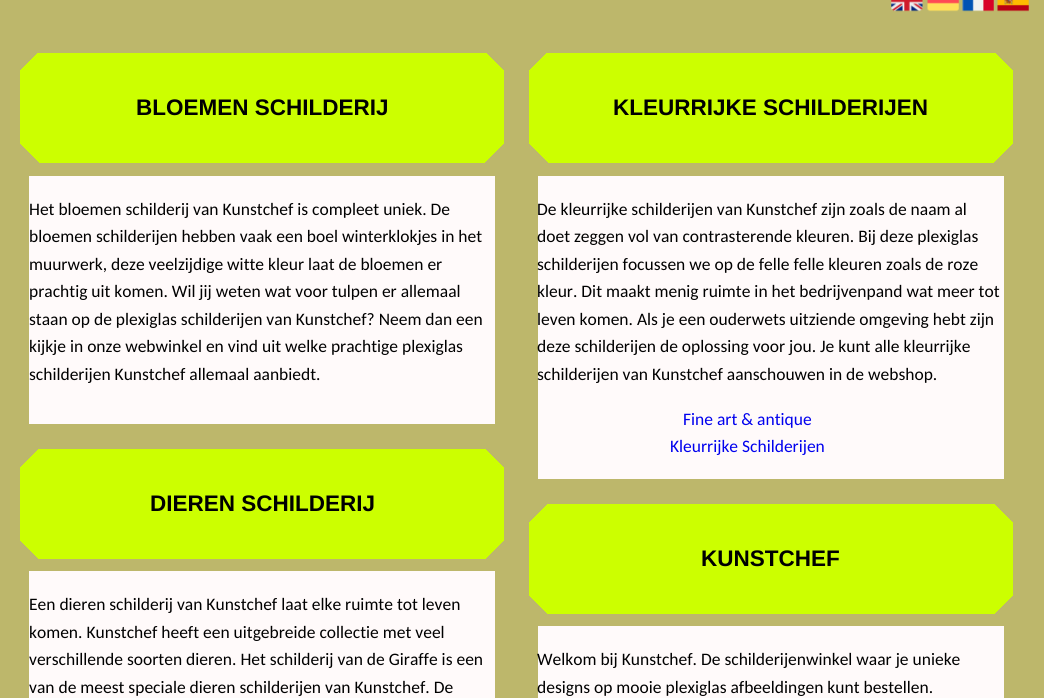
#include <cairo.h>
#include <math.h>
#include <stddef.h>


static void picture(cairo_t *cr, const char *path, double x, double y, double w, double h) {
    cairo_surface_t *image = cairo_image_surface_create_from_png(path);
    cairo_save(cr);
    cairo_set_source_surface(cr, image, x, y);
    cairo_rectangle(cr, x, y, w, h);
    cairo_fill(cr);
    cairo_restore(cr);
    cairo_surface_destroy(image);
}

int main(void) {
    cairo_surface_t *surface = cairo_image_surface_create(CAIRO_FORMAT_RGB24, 1044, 698);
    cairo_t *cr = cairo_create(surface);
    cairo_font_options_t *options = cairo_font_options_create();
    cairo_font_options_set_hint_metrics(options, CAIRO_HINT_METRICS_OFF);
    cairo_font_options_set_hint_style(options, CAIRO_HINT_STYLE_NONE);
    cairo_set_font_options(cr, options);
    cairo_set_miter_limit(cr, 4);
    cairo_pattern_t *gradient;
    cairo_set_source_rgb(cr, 0.741, 0.718, 0.42);
    cairo_paint(cr);
    picture(cr, "img1.png", 891, 0, 32, 12);
    picture(cr, "img2.png", 927, 0, 32, 12);
    picture(cr, "img3.png", 962, 0, 32, 12);
    picture(cr, "img4.png", 997, 0, 32, 12);
    gradient = cairo_pattern_create_linear(68, 210, 219, 60);
    cairo_pattern_add_color_stop_rgba(gradient, 0.06, 0.741, 0.718, 0.42, 1);
    cairo_pattern_add_color_stop_rgba(gradient, 0.06, 0.8, 1, 0, 1);
    cairo_set_source(cr, gradient);
    cairo_pattern_destroy(gradient);
    cairo_rectangle(cr, 20, 108, 238, 55);
    cairo_fill(cr);
    gradient = cairo_pattern_create_linear(456, 210, 305, 60);
    cairo_pattern_add_color_stop_rgba(gradient, 0.06, 0.8, 1, 0, 0);
    cairo_pattern_add_color_stop_rgba(gradient, 0.06, 0.8, 1, 0, 1);
    cairo_set_source(cr, gradient);
    cairo_pattern_destroy(gradient);
    cairo_rectangle(cr, 258, 108, 246, 55);
    cairo_fill(cr);
    gradient = cairo_pattern_create_linear(456, 4.6, 305, 155);
    cairo_pattern_add_color_stop_rgba(gradient, 0.06, 0.741, 0.718, 0.42, 1);
    cairo_pattern_add_color_stop_rgba(gradient, 0.06, 0.8, 1, 0, 1);
    cairo_set_source(cr, gradient);
    cairo_pattern_destroy(gradient);
    cairo_rectangle(cr, 266, 53, 238, 55);
    cairo_fill(cr);
    gradient = cairo_pattern_create_linear(68, 4.6, 219, 155);
    cairo_pattern_add_color_stop_rgba(gradient, 0.06, 0.8, 1, 0, 0);
    cairo_pattern_add_color_stop_rgba(gradient, 0.06, 0.8, 1, 0, 1);
    cairo_set_source(cr, gradient);
    cairo_pattern_destroy(gradient);
    cairo_rectangle(cr, 20, 53, 246, 55);
    cairo_fill(cr);
    cairo_select_font_face(cr, "Liberation Sans", CAIRO_FONT_SLANT_NORMAL, CAIRO_FONT_WEIGHT_BOLD);
    cairo_set_font_size(cr, 22.5);
    cairo_set_source_rgb(cr, 0, 0, 0);
    cairo_move_to(cr, 136, 115);
    cairo_show_text(cr, "BLOEMEN SCHILDERIJ");
    cairo_set_source_rgb(cr, 1, 0.98, 0.98);
    cairo_rectangle(cr, 29, 176, 466, 248);
    cairo_fill(cr);
    cairo_select_font_face(cr, "Carlito", CAIRO_FONT_SLANT_NORMAL, CAIRO_FONT_WEIGHT_NORMAL);
    cairo_set_font_size(cr, 17.5);
    cairo_set_source_rgb(cr, 0, 0, 0);
    cairo_move_to(cr, 29, 215);
    cairo_show_text(cr, "Het bloemen schilderij van Kunstchef is compleet uniek. De");
    cairo_move_to(cr, 29, 242);
    cairo_show_text(cr, "bloemen schilderijen hebben vaak een boel winterklokjes in het");
    cairo_move_to(cr, 29, 270);
    cairo_show_text(cr, "muurwerk, deze veelzijdige witte kleur laat de bloemen er");
    cairo_move_to(cr, 29, 297);
    cairo_show_text(cr, "prachtig uit komen. Wil jij weten wat voor tulpen er allemaal");
    cairo_move_to(cr, 29, 325);
    cairo_show_text(cr, "staan op de plexiglas schilderijen van Kunstchef? Neem dan een");
    cairo_move_to(cr, 29, 352);
    cairo_show_text(cr, "kijkje in onze webwinkel en vind uit welke prachtige plexiglas");
    cairo_move_to(cr, 29, 380);
    cairo_show_text(cr, "schilderijen Kunstchef allemaal aanbiedt.");
    gradient = cairo_pattern_create_linear(577, 210, 728, 60);
    cairo_pattern_add_color_stop_rgba(gradient, 0.06, 0.741, 0.718, 0.42, 1);
    cairo_pattern_add_color_stop_rgba(gradient, 0.06, 0.8, 1, 0, 1);
    cairo_set_source(cr, gradient);
    cairo_pattern_destroy(gradient);
    cairo_rectangle(cr, 529, 108, 237, 55);
    cairo_fill(cr);
    gradient = cairo_pattern_create_linear(965, 210, 814, 60);
    cairo_pattern_add_color_stop_rgba(gradient, 0.06, 0.8, 1, 0, 0);
    cairo_pattern_add_color_stop_rgba(gradient, 0.06, 0.8, 1, 0, 1);
    cairo_set_source(cr, gradient);
    cairo_pattern_destroy(gradient);
    cairo_rectangle(cr, 766, 108, 247, 55);
    cairo_fill(cr);
    gradient = cairo_pattern_create_linear(965, 4.6, 814, 155);
    cairo_pattern_add_color_stop_rgba(gradient, 0.06, 0.741, 0.718, 0.42, 1);
    cairo_pattern_add_color_stop_rgba(gradient, 0.06, 0.8, 1, 0, 1);
    cairo_set_source(cr, gradient);
    cairo_pattern_destroy(gradient);
    cairo_rectangle(cr, 775, 53, 238, 55);
    cairo_fill(cr);
    gradient = cairo_pattern_create_linear(577, 4.6, 728, 155);
    cairo_pattern_add_color_stop_rgba(gradient, 0.06, 0.8, 1, 0, 0);
    cairo_pattern_add_color_stop_rgba(gradient, 0.06, 0.8, 1, 0, 1);
    cairo_set_source(cr, gradient);
    cairo_pattern_destroy(gradient);
    cairo_rectangle(cr, 529, 53, 246, 55);
    cairo_fill(cr);
    cairo_select_font_face(cr, "Liberation Sans", CAIRO_FONT_SLANT_NORMAL, CAIRO_FONT_WEIGHT_BOLD);
    cairo_set_font_size(cr, 22.5);
    cairo_set_source_rgb(cr, 0, 0, 0);
    cairo_move_to(cr, 613, 115);
    cairo_show_text(cr, "KLEURRIJKE SCHILDERIJEN");
    cairo_set_source_rgb(cr, 1, 0.98, 0.98);
    cairo_rectangle(cr, 538, 176, 466, 303);
    cairo_fill(cr);
    cairo_select_font_face(cr, "Carlito", CAIRO_FONT_SLANT_NORMAL, CAIRO_FONT_WEIGHT_NORMAL);
    cairo_set_font_size(cr, 17.5);
    cairo_set_source_rgb(cr, 0, 0, 0);
    cairo_move_to(cr, 537, 215);
    cairo_show_text(cr, "De kleurrijke schilderijen van Kunstchef zijn zoals de naam al");
    cairo_move_to(cr, 537, 242);
    cairo_show_text(cr, "doet zeggen vol van contrasterende kleuren. Bij deze plexiglas");
    cairo_move_to(cr, 537, 270);
    cairo_show_text(cr, "schilderijen focussen we op de felle felle kleuren zoals de roze");
    cairo_move_to(cr, 537, 297);
    cairo_show_text(cr, "kleur. Dit maakt menig ruimte in het bedrijvenpand wat meer tot");
    cairo_move_to(cr, 537, 325);
    cairo_show_text(cr, "leven komen. Als je een ouderwets uitziende omgeving hebt zijn");
    cairo_move_to(cr, 537, 352);
    cairo_show_text(cr, "deze schilderijen de oplossing voor jou. Je kunt alle kleurrijke");
    cairo_move_to(cr, 537, 380);
    cairo_show_text(cr, "schilderijen van Kunstchef aanschouwen in de webshop.");
    cairo_set_source_rgb(cr, 0, 0, 0.933);
    cairo_move_to(cr, 683, 425);
    cairo_show_text(cr, "Fine art & antique");
    cairo_move_to(cr, 670, 452);
    cairo_show_text(cr, "Kleurrijke Schilderijen");
    gradient = cairo_pattern_create_linear(68, 607, 219, 456);
    cairo_pattern_add_color_stop_rgba(gradient, 0.06, 0.741, 0.718, 0.42, 1);
    cairo_pattern_add_color_stop_rgba(gradient, 0.06, 0.8, 1, 0, 1);
    cairo_set_source(cr, gradient);
    cairo_pattern_destroy(gradient);
    cairo_rectangle(cr, 20, 504, 238, 55);
    cairo_fill(cr);
    gradient = cairo_pattern_create_linear(456, 607, 305, 456);
    cairo_pattern_add_color_stop_rgba(gradient, 0.06, 0.8, 1, 0, 0);
    cairo_pattern_add_color_stop_rgba(gradient, 0.06, 0.8, 1, 0, 1);
    cairo_set_source(cr, gradient);
    cairo_pattern_destroy(gradient);
    cairo_rectangle(cr, 258, 504, 246, 55);
    cairo_fill(cr);
    gradient = cairo_pattern_create_linear(456, 401, 305, 552);
    cairo_pattern_add_color_stop_rgba(gradient, 0.06, 0.741, 0.718, 0.42, 1);
    cairo_pattern_add_color_stop_rgba(gradient, 0.06, 0.8, 1, 0, 1);
    cairo_set_source(cr, gradient);
    cairo_pattern_destroy(gradient);
    cairo_rectangle(cr, 266, 449, 238, 55);
    cairo_fill(cr);
    gradient = cairo_pattern_create_linear(68, 401, 219, 552);
    cairo_pattern_add_color_stop_rgba(gradient, 0.06, 0.8, 1, 0, 0);
    cairo_pattern_add_color_stop_rgba(gradient, 0.06, 0.8, 1, 0, 1);
    cairo_set_source(cr, gradient);
    cairo_pattern_destroy(gradient);
    cairo_rectangle(cr, 20, 449, 246, 55);
    cairo_fill(cr);
    cairo_select_font_face(cr, "Liberation Sans", CAIRO_FONT_SLANT_NORMAL, CAIRO_FONT_WEIGHT_BOLD);
    cairo_set_font_size(cr, 22.5);
    cairo_set_source_rgb(cr, 0, 0, 0);
    cairo_move_to(cr, 150, 511);
    cairo_show_text(cr, "DIEREN SCHILDERIJ");
    cairo_set_source_rgb(cr, 1, 0.98, 0.98);
    cairo_rectangle(cr, 29, 571, 466, 127);
    cairo_fill(cr);
    cairo_select_font_face(cr, "Carlito", CAIRO_FONT_SLANT_NORMAL, CAIRO_FONT_WEIGHT_NORMAL);
    cairo_set_font_size(cr, 17.5);
    cairo_set_source_rgb(cr, 0, 0, 0);
    cairo_move_to(cr, 29, 610);
    cairo_show_text(cr, "Een dieren schilderij van Kunstchef laat elke ruimte tot leven");
    cairo_move_to(cr, 29, 638);
    cairo_show_text(cr, "komen. Kunstchef heeft een uitgebreide collectie met veel");
    cairo_move_to(cr, 29, 665);
    cairo_show_text(cr, "verschillende soorten dieren. Het schilderij van de Giraffe is een");
    cairo_move_to(cr, 29, 693);
    cairo_show_text(cr, "van de meest speciale dieren schilderijen van Kunstchef. De");
    gradient = cairo_pattern_create_linear(577, 662, 728, 511);
    cairo_pattern_add_color_stop_rgba(gradient, 0.06, 0.741, 0.718, 0.42, 1);
    cairo_pattern_add_color_stop_rgba(gradient, 0.06, 0.8, 1, 0, 1);
    cairo_set_source(cr, gradient);
    cairo_pattern_destroy(gradient);
    cairo_rectangle(cr, 529, 559, 237, 55);
    cairo_fill(cr);
    gradient = cairo_pattern_create_linear(965, 662, 814, 511);
    cairo_pattern_add_color_stop_rgba(gradient, 0.06, 0.8, 1, 0, 0);
    cairo_pattern_add_color_stop_rgba(gradient, 0.06, 0.8, 1, 0, 1);
    cairo_set_source(cr, gradient);
    cairo_pattern_destroy(gradient);
    cairo_rectangle(cr, 766, 559, 247, 55);
    cairo_fill(cr);
    gradient = cairo_pattern_create_linear(965, 456, 814, 607);
    cairo_pattern_add_color_stop_rgba(gradient, 0.06, 0.741, 0.718, 0.42, 1);
    cairo_pattern_add_color_stop_rgba(gradient, 0.06, 0.8, 1, 0, 1);
    cairo_set_source(cr, gradient);
    cairo_pattern_destroy(gradient);
    cairo_rectangle(cr, 775, 504, 238, 55);
    cairo_fill(cr);
    gradient = cairo_pattern_create_linear(577, 456, 728, 607);
    cairo_pattern_add_color_stop_rgba(gradient, 0.06, 0.8, 1, 0, 0);
    cairo_pattern_add_color_stop_rgba(gradient, 0.06, 0.8, 1, 0, 1);
    cairo_set_source(cr, gradient);
    cairo_pattern_destroy(gradient);
    cairo_rectangle(cr, 529, 504, 246, 55);
    cairo_fill(cr);
    cairo_select_font_face(cr, "Liberation Sans", CAIRO_FONT_SLANT_NORMAL, CAIRO_FONT_WEIGHT_BOLD);
    cairo_set_font_size(cr, 22.5);
    cairo_set_source_rgb(cr, 0, 0, 0);
    cairo_move_to(cr, 701, 566);
    cairo_show_text(cr, "KUNSTCHEF");
    cairo_set_source_rgb(cr, 1, 0.98, 0.98);
    cairo_rectangle(cr, 538, 626, 466, 72);
    cairo_fill(cr);
    cairo_select_font_face(cr, "Carlito", CAIRO_FONT_SLANT_NORMAL, CAIRO_FONT_WEIGHT_NORMAL);
    cairo_set_font_size(cr, 17.5);
    cairo_set_source_rgb(cr, 0, 0, 0);
    cairo_move_to(cr, 537, 665);
    cairo_show_text(cr, "Welkom bij Kunstchef. De schilderijenwinkel waar je unieke");
    cairo_move_to(cr, 537, 693);
    cairo_show_text(cr, "designs op mooie plexiglas afbeeldingen kunt bestellen.");
    cairo_surface_write_to_png(surface, "page.png");
    cairo_font_options_destroy(options);
    cairo_destroy(cr);
    cairo_surface_destroy(surface);
    return 0;
}
